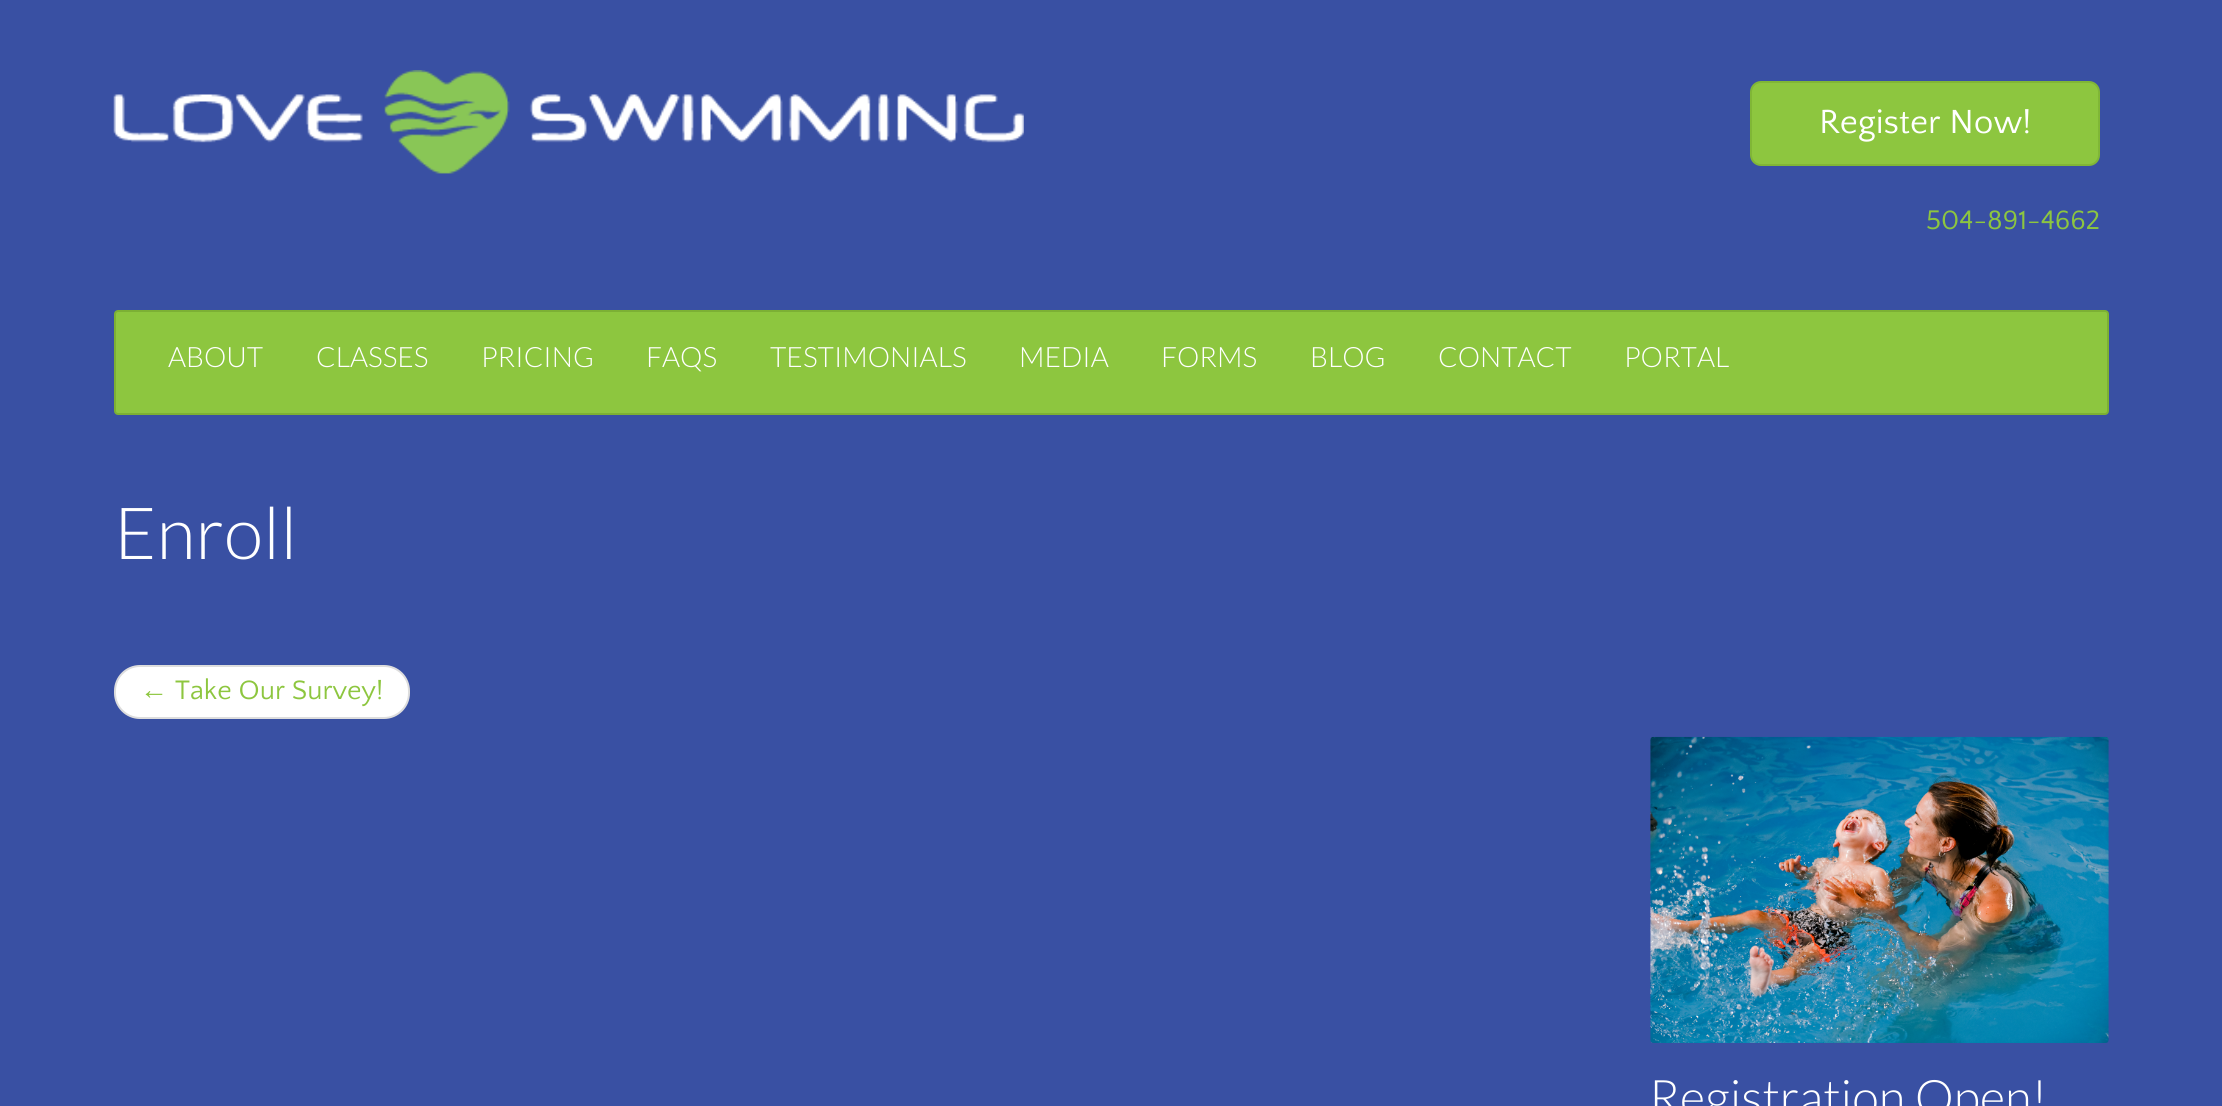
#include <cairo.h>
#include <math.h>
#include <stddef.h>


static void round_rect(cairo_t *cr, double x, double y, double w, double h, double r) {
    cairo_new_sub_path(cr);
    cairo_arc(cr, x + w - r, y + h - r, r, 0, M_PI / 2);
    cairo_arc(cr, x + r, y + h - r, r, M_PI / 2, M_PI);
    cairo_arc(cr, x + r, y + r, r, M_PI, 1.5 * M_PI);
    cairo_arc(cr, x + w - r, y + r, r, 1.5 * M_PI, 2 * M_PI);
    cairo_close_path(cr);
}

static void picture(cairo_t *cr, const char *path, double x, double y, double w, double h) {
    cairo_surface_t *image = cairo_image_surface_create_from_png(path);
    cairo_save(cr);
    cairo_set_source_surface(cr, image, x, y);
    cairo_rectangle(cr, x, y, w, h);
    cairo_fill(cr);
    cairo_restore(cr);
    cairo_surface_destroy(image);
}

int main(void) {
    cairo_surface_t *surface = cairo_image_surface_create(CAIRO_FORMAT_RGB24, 2222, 1106);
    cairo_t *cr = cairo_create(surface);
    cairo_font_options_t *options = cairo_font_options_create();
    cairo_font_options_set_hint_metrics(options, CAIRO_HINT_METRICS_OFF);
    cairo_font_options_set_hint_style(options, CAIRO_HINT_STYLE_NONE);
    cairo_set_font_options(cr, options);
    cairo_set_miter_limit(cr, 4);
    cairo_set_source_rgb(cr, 0.224, 0.314, 0.639);
    cairo_paint(cr);
    picture(cr, "img1.png", 113, 70, 911, 104);
    cairo_set_source_rgb(cr, 0.553, 0.776, 0.247);
    round_rect(cr, 1751, 82, 348, 83, 10);
    cairo_fill_preserve(cr);
    cairo_set_source_rgb(cr, 0.502, 0.714, 0.212);
    cairo_stroke(cr);
    cairo_select_font_face(cr, "Quattrocento Sans", CAIRO_FONT_SLANT_NORMAL, CAIRO_FONT_WEIGHT_NORMAL);
    cairo_set_font_size(cr, 35);
    cairo_set_source_rgb(cr, 1, 1, 1);
    cairo_move_to(cr, 1819, 133);
    cairo_show_text(cr, "Register Now!");
    cairo_set_font_size(cr, 28);
    cairo_set_source_rgb(cr, 0.553, 0.776, 0.247);
    cairo_move_to(cr, 1926, 229);
    cairo_show_text(cr, "504-891-4662");
    round_rect(cr, 115, 311, 1993, 103, 3);
    cairo_fill_preserve(cr);
    cairo_set_source_rgb(cr, 0.486, 0.69, 0.204);
    cairo_stroke(cr);
    cairo_select_font_face(cr, "Lato Light", CAIRO_FONT_SLANT_NORMAL, CAIRO_FONT_WEIGHT_NORMAL);
    cairo_set_source_rgb(cr, 1, 1, 1);
    cairo_move_to(cr, 168, 367);
    cairo_show_text(cr, "ABOUT");
    cairo_move_to(cr, 316, 367);
    cairo_show_text(cr, "CLASSES");
    cairo_move_to(cr, 481, 367);
    cairo_show_text(cr, "PRICING");
    cairo_move_to(cr, 646, 367);
    cairo_show_text(cr, "FAQS");
    cairo_move_to(cr, 770, 367);
    cairo_show_text(cr, "TESTIMONIALS");
    cairo_move_to(cr, 1019, 367);
    cairo_show_text(cr, "MEDIA");
    cairo_move_to(cr, 1161, 367);
    cairo_show_text(cr, "FORMS");
    cairo_move_to(cr, 1310, 367);
    cairo_show_text(cr, "BLOG");
    cairo_move_to(cr, 1438, 367);
    cairo_show_text(cr, "CONTACT");
    cairo_move_to(cr, 1624, 367);
    cairo_show_text(cr, "PORTAL");
    cairo_set_font_size(cr, 72);
    cairo_move_to(cr, 114, 559);
    cairo_show_text(cr, "Enroll");
    round_rect(cr, 115, 666, 294, 52, 25);
    cairo_fill_preserve(cr);
    cairo_set_source_rgb(cr, 0.867, 0.867, 0.867);
    cairo_stroke(cr);
    cairo_select_font_face(cr, "Liberation Sans", CAIRO_FONT_SLANT_NORMAL, CAIRO_FONT_WEIGHT_NORMAL);
    cairo_set_font_size(cr, 28);
    cairo_set_source_rgb(cr, 0.553, 0.776, 0.247);
    cairo_move_to(cr, 140, 699);
    cairo_show_text(cr, "←");
    cairo_select_font_face(cr, "Quattrocento Sans", CAIRO_FONT_SLANT_NORMAL, CAIRO_FONT_WEIGHT_NORMAL);
    cairo_move_to(cr, 175, 699);
    cairo_show_text(cr, "Take Our Survey!");
    picture(cr, "img2.png", 1650, 736, 459, 307);
    cairo_select_font_face(cr, "Lato Light", CAIRO_FONT_SLANT_NORMAL, CAIRO_FONT_WEIGHT_NORMAL);
    cairo_set_font_size(cr, 49);
    cairo_set_source_rgb(cr, 1, 1, 1);
    cairo_move_to(cr, 1649, 1115);
    cairo_show_text(cr, "Registration Open!");
    cairo_surface_write_to_png(surface, "page.png");
    cairo_font_options_destroy(options);
    cairo_destroy(cr);
    cairo_surface_destroy(surface);
    return 0;
}
